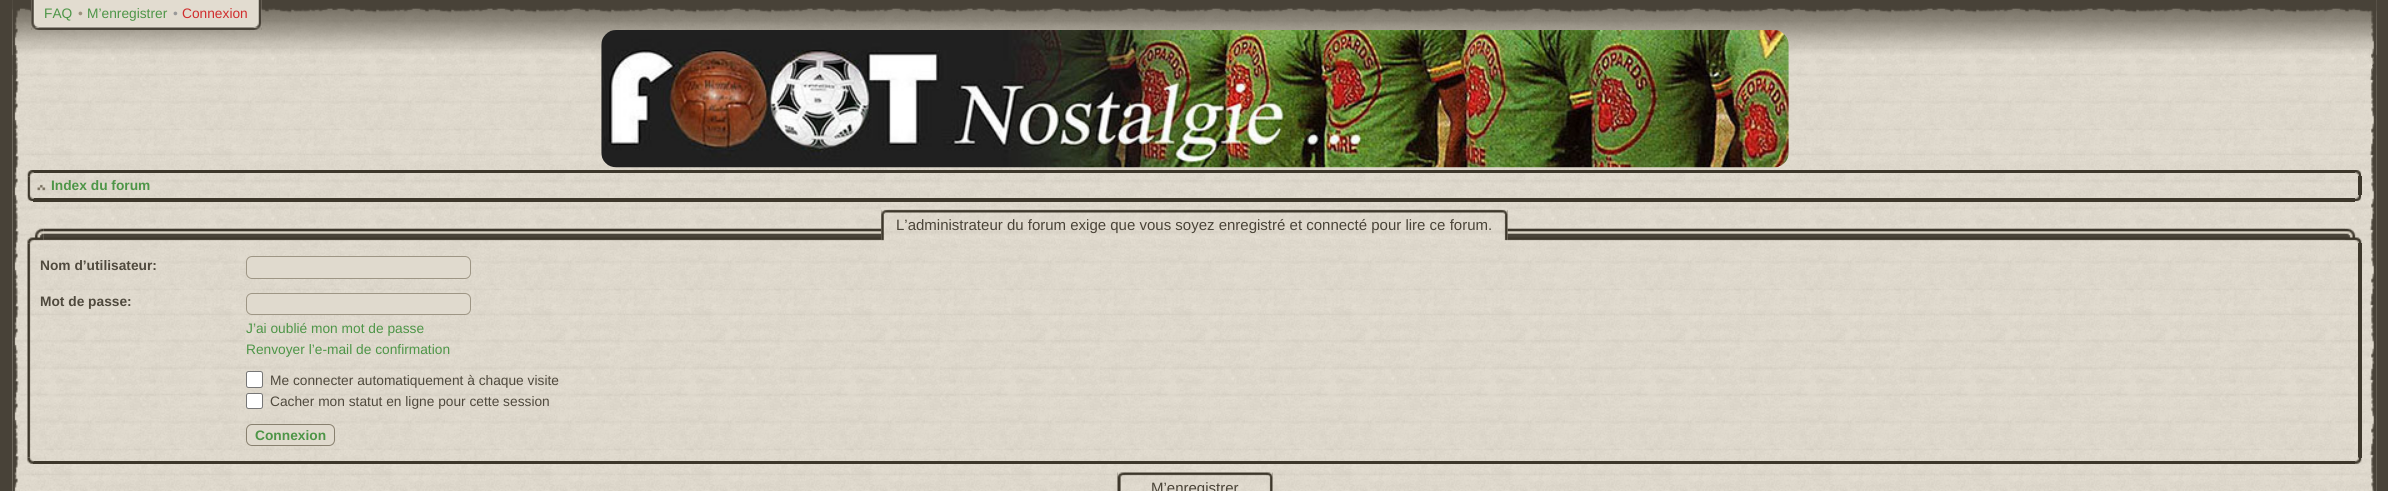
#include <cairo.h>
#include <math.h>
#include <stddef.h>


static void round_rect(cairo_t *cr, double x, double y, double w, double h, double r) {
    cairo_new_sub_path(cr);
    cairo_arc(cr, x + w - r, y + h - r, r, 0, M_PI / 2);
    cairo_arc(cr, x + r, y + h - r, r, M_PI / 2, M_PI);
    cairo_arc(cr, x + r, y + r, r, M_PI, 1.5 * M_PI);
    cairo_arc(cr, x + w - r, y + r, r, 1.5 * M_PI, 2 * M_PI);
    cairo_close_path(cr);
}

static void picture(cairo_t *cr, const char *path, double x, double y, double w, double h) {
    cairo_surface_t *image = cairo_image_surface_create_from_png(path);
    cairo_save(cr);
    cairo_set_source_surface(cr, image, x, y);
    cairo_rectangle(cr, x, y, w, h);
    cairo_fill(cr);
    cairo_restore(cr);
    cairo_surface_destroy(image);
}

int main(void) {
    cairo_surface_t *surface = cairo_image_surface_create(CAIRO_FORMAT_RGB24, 2388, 491);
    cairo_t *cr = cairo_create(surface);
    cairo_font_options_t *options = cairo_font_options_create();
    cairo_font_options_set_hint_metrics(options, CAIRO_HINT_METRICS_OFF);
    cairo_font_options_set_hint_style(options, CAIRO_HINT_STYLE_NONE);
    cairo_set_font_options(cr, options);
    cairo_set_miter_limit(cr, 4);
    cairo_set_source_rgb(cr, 0.282, 0.259, 0.22);
    cairo_paint(cr);
    picture(cr, "img1.png", 12, 0, 2365, 491);
    picture(cr, "img2.png", 12, 0, 8, 491);
    picture(cr, "img3.png", 2369, 0, 8, 491);
    picture(cr, "img4.png", 12, 0, 2365, 56);
    picture(cr, "img5.png", 12, 0, 8, 75);
    picture(cr, "img6.png", 2369, 0, 8, 75);
    picture(cr, "img7.png", 31, 0, 231, 30);
    picture(cr, "img8.png", 31, 0, 8, 30);
    picture(cr, "img9.png", 253, 0, 9, 30);
    cairo_select_font_face(cr, "Liberation Sans", CAIRO_FONT_SLANT_NORMAL, CAIRO_FONT_WEIGHT_NORMAL);
    cairo_set_font_size(cr, 13.75);
    cairo_set_source_rgb(cr, 0.302, 0.584, 0.278);
    cairo_move_to(cr, 44, 18);
    cairo_show_text(cr, "FAQ");
    cairo_set_source_rgb(cr, 0.612, 0.573, 0.494);
    cairo_move_to(cr, 78, 18);
    cairo_show_text(cr, "•");
    cairo_set_source_rgb(cr, 0.302, 0.584, 0.278);
    cairo_move_to(cr, 87, 18);
    cairo_show_text(cr, "M’enregistrer");
    cairo_set_source_rgb(cr, 0.6, 0.6, 0.6);
    cairo_move_to(cr, 173, 18);
    cairo_show_text(cr, "•");
    cairo_set_source_rgb(cr, 0.816, 0.173, 0.173);
    cairo_move_to(cr, 182, 18);
    cairo_show_text(cr, "Connexion");
    picture(cr, "img10.png", 601, 30, 1188, 138);
    cairo_set_source_rgb(cr, 0.239, 0.216, 0.169);
    cairo_rectangle(cr, 33, 170, 2322, 3);
    cairo_fill(cr);
    picture(cr, "img11.png", 27, 170, 7, 7);
    picture(cr, "img12.png", 2355, 170, 7, 7);
    picture(cr, "img13.png", 27, 176, 4, 19);
    cairo_rectangle(cr, 2358, 176, 4, 19);
    cairo_fill(cr);
    picture(cr, "img14.png", 37, 184, 9, 7);
    cairo_select_font_face(cr, "Liberation Sans", CAIRO_FONT_SLANT_NORMAL, CAIRO_FONT_WEIGHT_BOLD);
    cairo_set_source_rgb(cr, 0.302, 0.584, 0.278);
    cairo_move_to(cr, 51, 190);
    cairo_show_text(cr, "Index du forum");
    cairo_set_source_rgb(cr, 0.239, 0.216, 0.169);
    cairo_rectangle(cr, 33, 198, 2322, 4);
    cairo_fill(cr);
    picture(cr, "img15.png", 27, 195, 7, 7);
    picture(cr, "img16.png", 2355, 195, 7, 7);
    picture(cr, "img17.png", 2345, 228, 17, 16);
    picture(cr, "img18.png", 27, 228, 17, 16);
    picture(cr, "img19.png", 43, 228, 2302, 13);
    picture(cr, "img20.png", 881, 207, 627, 37);
    picture(cr, "img21.png", 881, 207, 7, 37);
    picture(cr, "img22.png", 1501, 209, 7, 32);
    cairo_select_font_face(cr, "Liberation Sans", CAIRO_FONT_SLANT_NORMAL, CAIRO_FONT_WEIGHT_NORMAL);
    cairo_set_font_size(cr, 15);
    cairo_set_source_rgb(cr, 0.286, 0.263, 0.216);
    cairo_move_to(cr, 896, 230);
    cairo_show_text(cr, "L’administrateur du forum exige que vous soyez enregistré et connecté pour lire ce forum.");
    picture(cr, "img23.png", 27, 243, 4, 215);
    cairo_set_source_rgb(cr, 0.239, 0.216, 0.169);
    cairo_rectangle(cr, 2358, 243, 4, 215);
    cairo_fill(cr);
    cairo_select_font_face(cr, "Liberation Sans", CAIRO_FONT_SLANT_NORMAL, CAIRO_FONT_WEIGHT_BOLD);
    cairo_set_font_size(cr, 13.75);
    cairo_set_source_rgb(cr, 0.31, 0.286, 0.239);
    cairo_move_to(cr, 40, 270);
    cairo_show_text(cr, "Nom d’utilisateur:");
    cairo_set_source_rgb(cr, 0.878, 0.855, 0.808);
    round_rect(cr, 246.5, 256.5, 224, 22, 5.5);
    cairo_fill_preserve(cr);
    cairo_set_source_rgb(cr, 0.62, 0.588, 0.522);
    cairo_set_line_width(cr, 1);
    cairo_stroke(cr);
    cairo_set_source_rgb(cr, 0.31, 0.286, 0.239);
    cairo_move_to(cr, 40, 306);
    cairo_show_text(cr, "Mot de passe:");
    cairo_set_source_rgb(cr, 0.878, 0.855, 0.808);
    round_rect(cr, 246.5, 293.5, 224, 21, 5.5);
    cairo_fill_preserve(cr);
    cairo_set_source_rgb(cr, 0.62, 0.588, 0.522);
    cairo_stroke(cr);
    cairo_select_font_face(cr, "Liberation Sans", CAIRO_FONT_SLANT_NORMAL, CAIRO_FONT_WEIGHT_NORMAL);
    cairo_set_source_rgb(cr, 0.302, 0.584, 0.278);
    cairo_move_to(cr, 246, 333);
    cairo_show_text(cr, "J’ai oublié mon mot de passe");
    cairo_move_to(cr, 246, 354);
    cairo_show_text(cr, "Renvoyer l’e-mail de confirmation");
    cairo_set_source_rgb(cr, 1, 1, 1);
    round_rect(cr, 246.5, 371.5, 16, 16, 2);
    cairo_fill_preserve(cr);
    cairo_set_source_rgb(cr, 0.463, 0.463, 0.463);
    cairo_stroke(cr);
    cairo_set_source_rgb(cr, 0.31, 0.286, 0.239);
    cairo_move_to(cr, 270, 385);
    cairo_show_text(cr, "Me connecter automatiquement à chaque visite");
    cairo_set_source_rgb(cr, 1, 1, 1);
    round_rect(cr, 246.5, 393.5, 16, 15, 2);
    cairo_fill_preserve(cr);
    cairo_set_source_rgb(cr, 0.463, 0.463, 0.463);
    cairo_stroke(cr);
    cairo_set_source_rgb(cr, 0.31, 0.286, 0.239);
    cairo_move_to(cr, 270, 406);
    cairo_show_text(cr, "Cacher mon statut en ligne pour cette session");
    cairo_set_source_rgb(cr, 0.878, 0.855, 0.808);
    round_rect(cr, 246.5, 424.5, 88, 21, 5.5);
    cairo_fill_preserve(cr);
    cairo_set_source_rgb(cr, 0.533, 0.502, 0.435);
    cairo_stroke(cr);
    cairo_select_font_face(cr, "Liberation Sans", CAIRO_FONT_SLANT_NORMAL, CAIRO_FONT_WEIGHT_BOLD);
    cairo_set_source_rgb(cr, 0.302, 0.584, 0.278);
    cairo_move_to(cr, 255, 440);
    cairo_show_text(cr, "Connexion");
    cairo_set_source_rgb(cr, 0.239, 0.216, 0.169);
    cairo_rectangle(cr, 33, 461, 2322, 3);
    cairo_fill(cr);
    picture(cr, "img24.png", 27, 457, 7, 7);
    picture(cr, "img25.png", 2355, 457, 7, 7);
    picture(cr, "img26.png", 1117, 470, 156, 21);
    picture(cr, "img27.png", 1117, 470, 8, 21);
    picture(cr, "img28.png", 1266, 470, 7, 21);
    cairo_select_font_face(cr, "Liberation Sans", CAIRO_FONT_SLANT_NORMAL, CAIRO_FONT_WEIGHT_NORMAL);
    cairo_set_font_size(cr, 15);
    cairo_set_source_rgb(cr, 0.286, 0.263, 0.216);
    cairo_move_to(cr, 1151, 493);
    cairo_show_text(cr, "M’enregistrer");
    cairo_surface_write_to_png(surface, "page.png");
    cairo_font_options_destroy(options);
    cairo_destroy(cr);
    cairo_surface_destroy(surface);
    return 0;
}
